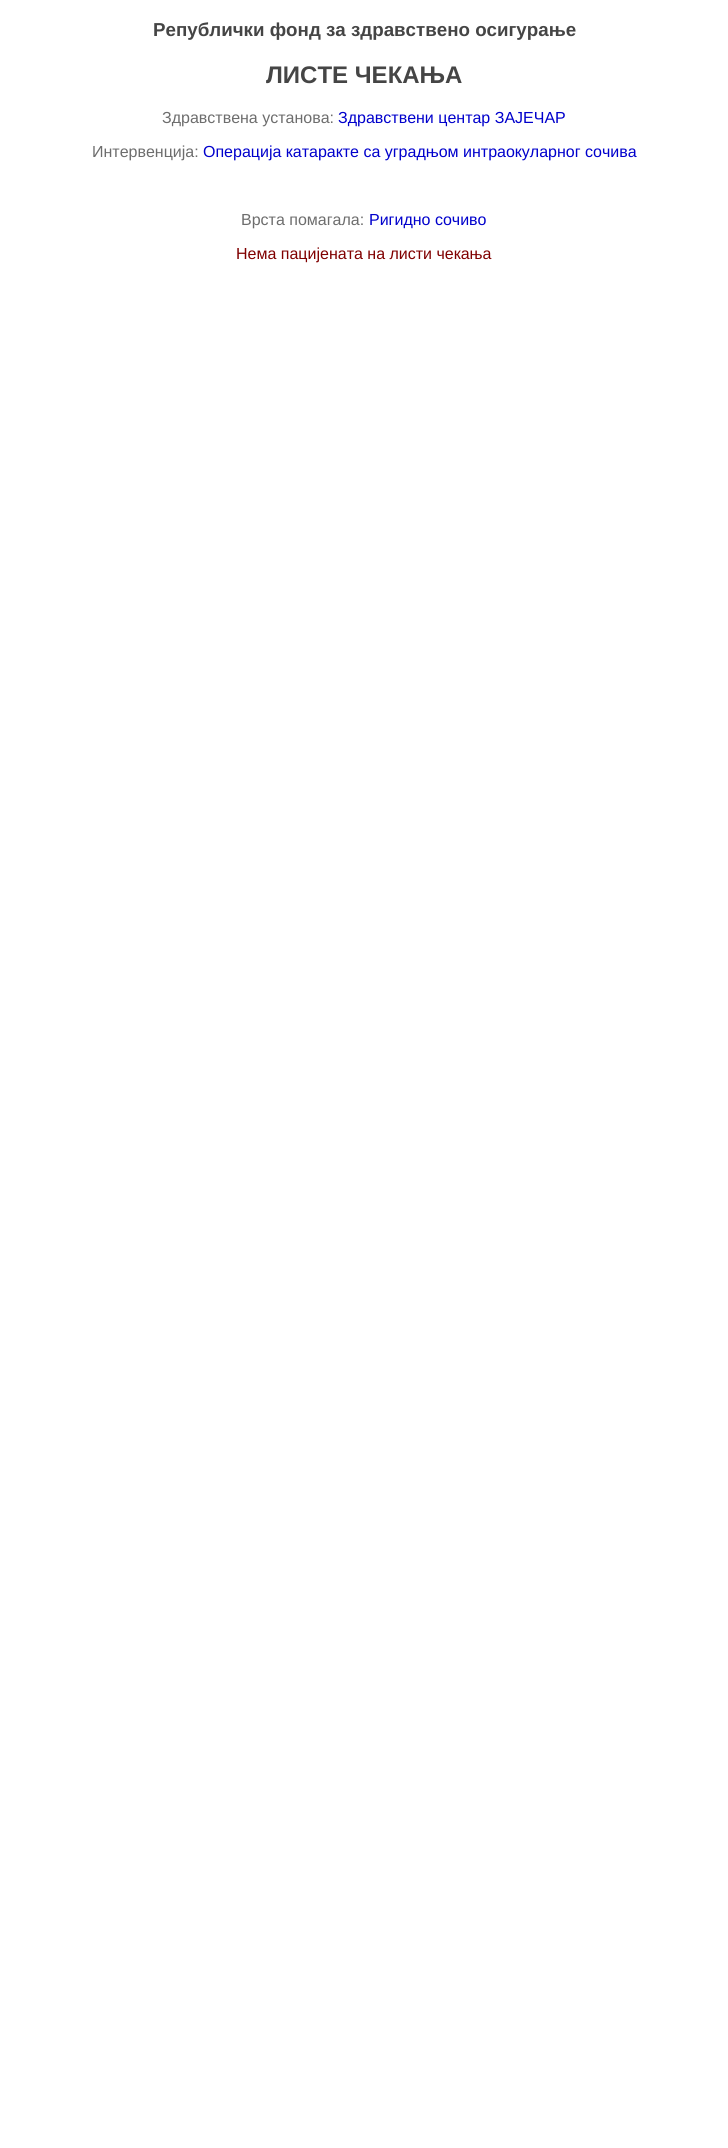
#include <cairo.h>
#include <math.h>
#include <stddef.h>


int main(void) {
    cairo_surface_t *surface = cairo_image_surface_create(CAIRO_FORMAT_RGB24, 728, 2148);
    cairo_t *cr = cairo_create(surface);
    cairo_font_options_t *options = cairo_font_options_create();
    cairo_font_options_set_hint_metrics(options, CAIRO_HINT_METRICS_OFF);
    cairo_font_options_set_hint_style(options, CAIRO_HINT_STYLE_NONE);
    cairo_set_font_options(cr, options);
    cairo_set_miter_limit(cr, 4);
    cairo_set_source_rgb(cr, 1, 1, 1);
    cairo_paint(cr);
    cairo_select_font_face(cr, "Liberation Sans", CAIRO_FONT_SLANT_NORMAL, CAIRO_FONT_WEIGHT_BOLD);
    cairo_set_font_size(cr, 18.75);
    cairo_set_source_rgb(cr, 0.271, 0.271, 0.271);
    cairo_move_to(cr, 153, 36);
    cairo_show_text(cr, "Републички фонд за здравствено осигурање");
    cairo_set_font_size(cr, 24);
    cairo_move_to(cr, 266, 83);
    cairo_show_text(cr, "ЛИСТЕ ЧЕКАЊА");
    cairo_select_font_face(cr, "Liberation Sans", CAIRO_FONT_SLANT_NORMAL, CAIRO_FONT_WEIGHT_NORMAL);
    cairo_set_font_size(cr, 16);
    cairo_set_source_rgb(cr, 0.427, 0.427, 0.427);
    cairo_move_to(cr, 162, 123);
    cairo_show_text(cr, "Здравствена установа:");
    cairo_set_source_rgb(cr, 0, 0, 0.8);
    cairo_move_to(cr, 338, 123);
    cairo_show_text(cr, "Здравствени центар ЗАЈЕЧАР");
    cairo_set_source_rgb(cr, 0.427, 0.427, 0.427);
    cairo_move_to(cr, 92, 157);
    cairo_show_text(cr, "Интервенција:");
    cairo_set_source_rgb(cr, 0, 0, 0.8);
    cairo_move_to(cr, 203, 157);
    cairo_show_text(cr, "Операција катаракте са уградњом интраокуларног сочива");
    cairo_set_source_rgb(cr, 0.427, 0.427, 0.427);
    cairo_move_to(cr, 241, 225);
    cairo_show_text(cr, "Врста помагала:");
    cairo_set_source_rgb(cr, 0, 0, 0.8);
    cairo_move_to(cr, 369, 225);
    cairo_show_text(cr, "Ригидно сочиво");
    cairo_set_source_rgb(cr, 0.502, 0, 0);
    cairo_move_to(cr, 236, 259);
    cairo_show_text(cr, "Нема пацијената на листи чекања");
    cairo_surface_write_to_png(surface, "page.png");
    cairo_font_options_destroy(options);
    cairo_destroy(cr);
    cairo_surface_destroy(surface);
    return 0;
}
